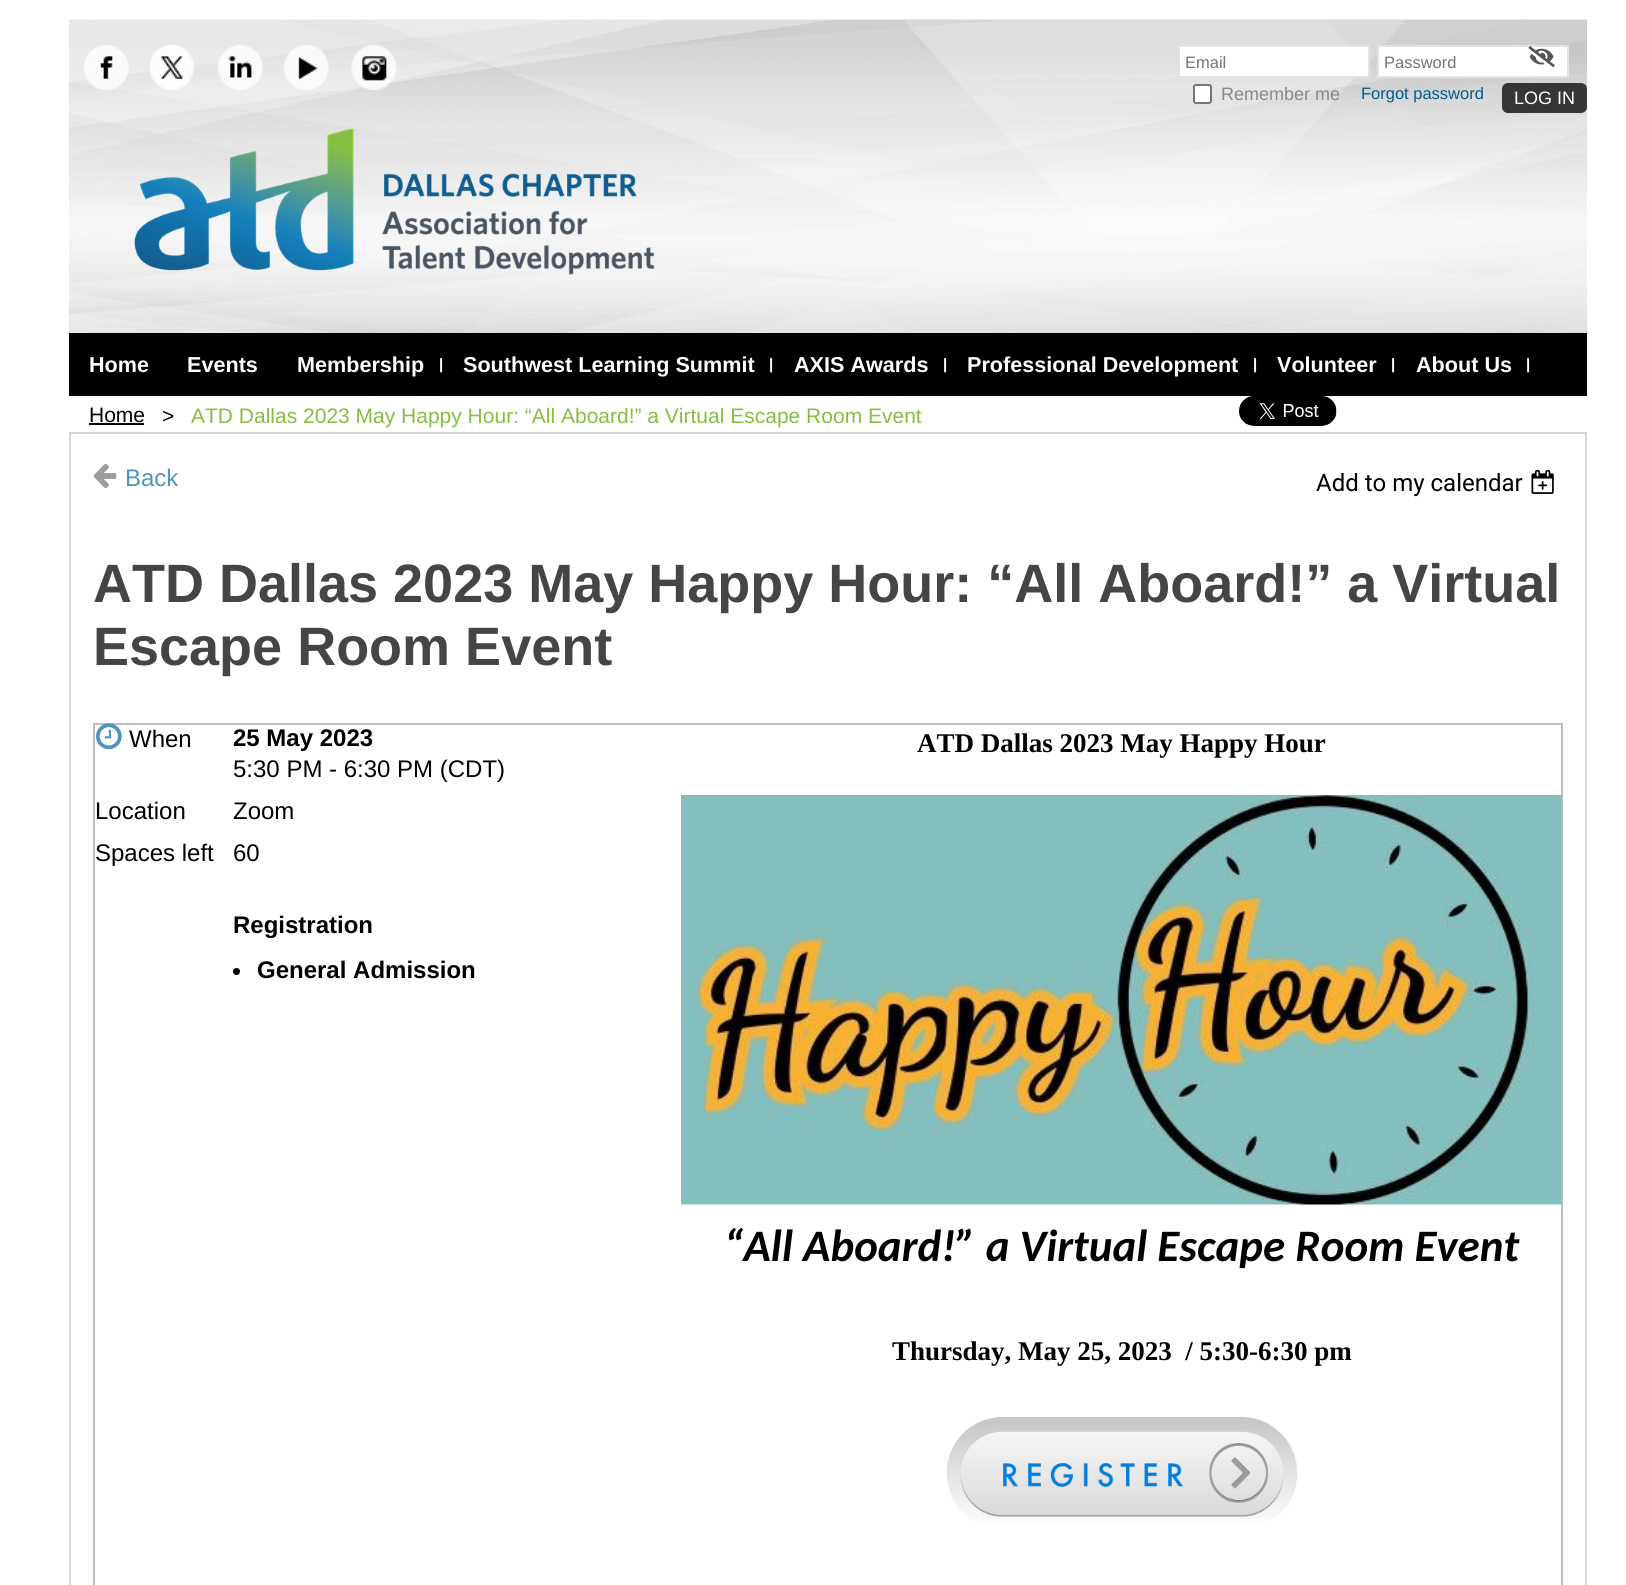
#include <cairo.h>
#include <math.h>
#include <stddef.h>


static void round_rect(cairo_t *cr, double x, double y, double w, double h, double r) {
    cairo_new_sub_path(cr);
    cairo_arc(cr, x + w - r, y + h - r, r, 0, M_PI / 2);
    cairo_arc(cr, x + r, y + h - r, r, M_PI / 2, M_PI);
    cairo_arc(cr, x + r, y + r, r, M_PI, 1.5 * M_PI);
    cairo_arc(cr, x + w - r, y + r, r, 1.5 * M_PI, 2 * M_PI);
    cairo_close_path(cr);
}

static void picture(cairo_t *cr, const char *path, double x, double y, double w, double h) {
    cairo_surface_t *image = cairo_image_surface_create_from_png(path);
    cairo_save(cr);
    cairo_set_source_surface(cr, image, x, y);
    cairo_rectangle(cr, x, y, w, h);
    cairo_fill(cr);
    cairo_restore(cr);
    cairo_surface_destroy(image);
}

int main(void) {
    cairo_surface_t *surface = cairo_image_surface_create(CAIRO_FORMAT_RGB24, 1626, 1585);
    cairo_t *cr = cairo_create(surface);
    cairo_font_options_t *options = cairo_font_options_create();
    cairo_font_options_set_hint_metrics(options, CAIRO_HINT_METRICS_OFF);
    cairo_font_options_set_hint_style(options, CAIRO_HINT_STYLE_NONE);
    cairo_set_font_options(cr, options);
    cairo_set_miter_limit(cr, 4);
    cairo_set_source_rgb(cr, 1, 1, 1);
    cairo_paint(cr);
    picture(cr, "img1.png", 69, 19, 1518, 314);
    picture(cr, "img2.png", 84, 45, 45, 45);
    picture(cr, "img3.png", 150, 45, 45, 45);
    picture(cr, "img4.png", 217, 45, 46, 45);
    picture(cr, "img5.png", 283, 45, 46, 45);
    picture(cr, "img6.png", 351, 45, 45, 45);
    cairo_set_source_rgb(cr, 1, 1, 1);
    cairo_rectangle(cr, 1179, 46, 190, 31);
    cairo_fill_preserve(cr);
    cairo_set_source_rgb(cr, 0.89, 0.89, 0.89);
    cairo_stroke(cr);
    cairo_select_font_face(cr, "Liberation Sans", CAIRO_FONT_SLANT_NORMAL, CAIRO_FONT_WEIGHT_NORMAL);
    cairo_set_font_size(cr, 16.5);
    cairo_set_source_rgb(cr, 0.459, 0.459, 0.459);
    cairo_move_to(cr, 1185, 68);
    cairo_show_text(cr, "Email");
    cairo_set_source_rgb(cr, 1, 1, 1);
    cairo_rectangle(cr, 1378, 46, 190, 31);
    cairo_fill_preserve(cr);
    cairo_set_source_rgb(cr, 0.89, 0.89, 0.89);
    cairo_stroke(cr);
    cairo_set_source_rgb(cr, 0.459, 0.459, 0.459);
    cairo_move_to(cr, 1384, 68);
    cairo_show_text(cr, "Password");
    picture(cr, "img7.png", 1528, 46, 27, 22);
    cairo_set_source_rgb(cr, 0.212, 0.212, 0.212);
    round_rect(cr, 1502, 83, 85, 30, 6);
    cairo_fill(cr);
    cairo_set_font_size(cr, 18);
    cairo_set_source_rgb(cr, 1, 1, 1);
    cairo_move_to(cr, 1514, 104);
    cairo_show_text(cr, "LOG IN");
    round_rect(cr, 1194, 85, 17, 18, 2);
    cairo_fill_preserve(cr);
    cairo_set_source_rgb(cr, 0.463, 0.463, 0.463);
    cairo_stroke(cr);
    cairo_set_source_rgb(cr, 0.533, 0.533, 0.533);
    cairo_move_to(cr, 1221, 100);
    cairo_show_text(cr, "Remember me");
    cairo_set_font_size(cr, 16.5);
    cairo_set_source_rgb(cr, 0, 0.357, 0.557);
    cairo_move_to(cr, 1361, 99);
    cairo_show_text(cr, "Forgot password");
    cairo_set_source_rgb(cr, 0, 0, 0);
    cairo_rectangle(cr, 69, 333, 1518, 63);
    cairo_fill(cr);
    cairo_select_font_face(cr, "Liberation Sans", CAIRO_FONT_SLANT_NORMAL, CAIRO_FONT_WEIGHT_BOLD);
    cairo_set_font_size(cr, 21.6);
    cairo_set_source_rgb(cr, 1, 1, 1);
    cairo_move_to(cr, 89, 372);
    cairo_show_text(cr, "Home");
    cairo_move_to(cr, 187, 372);
    cairo_show_text(cr, "Events");
    cairo_move_to(cr, 297, 372);
    cairo_show_text(cr, "Membership");
    cairo_set_font_size(cr, 15);
    cairo_move_to(cr, 439, 369);
    cairo_show_text(cr, "|");
    cairo_set_font_size(cr, 21.6);
    cairo_move_to(cr, 463, 372);
    cairo_show_text(cr, "Southwest Learning Summit");
    cairo_set_font_size(cr, 15);
    cairo_move_to(cr, 769, 369);
    cairo_show_text(cr, "|");
    cairo_set_font_size(cr, 21.6);
    cairo_move_to(cr, 794, 372);
    cairo_show_text(cr, "AXIS Awards");
    cairo_set_font_size(cr, 15);
    cairo_move_to(cr, 943, 369);
    cairo_show_text(cr, "|");
    cairo_set_font_size(cr, 21.6);
    cairo_move_to(cr, 967, 372);
    cairo_show_text(cr, "Professional Development");
    cairo_set_font_size(cr, 15);
    cairo_move_to(cr, 1253, 369);
    cairo_show_text(cr, "|");
    cairo_set_font_size(cr, 21.6);
    cairo_move_to(cr, 1277, 372);
    cairo_show_text(cr, "Volunteer");
    cairo_set_font_size(cr, 15);
    cairo_move_to(cr, 1391, 369);
    cairo_show_text(cr, "|");
    cairo_set_font_size(cr, 21.6);
    cairo_move_to(cr, 1416, 372);
    cairo_show_text(cr, "About Us");
    cairo_set_font_size(cr, 15);
    cairo_move_to(cr, 1526, 369);
    cairo_show_text(cr, "|");
    cairo_select_font_face(cr, "Liberation Sans", CAIRO_FONT_SLANT_NORMAL, CAIRO_FONT_WEIGHT_NORMAL);
    cairo_set_font_size(cr, 21);
    cairo_set_source_rgb(cr, 0, 0, 0);
    cairo_move_to(cr, 89, 422);
    cairo_show_text(cr, "Home");
    cairo_rectangle(cr, 89, 423, 55, 2);
    cairo_fill(cr);
    cairo_move_to(cr, 162, 423);
    cairo_show_text(cr, ">");
    cairo_set_source_rgb(cr, 0.522, 0.749, 0.259);
    cairo_move_to(cr, 191, 423);
    cairo_show_text(cr, "ATD Dallas 2023 May Happy Hour: “All Aboard!” a Virtual Escape Room Event");
    picture(cr, "img8.png", 1239, 396, 98, 30);
    cairo_rectangle(cr, 70, 433, 1516, 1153);
    cairo_set_source_rgb(cr, 0.839, 0.839, 0.839);
    cairo_stroke(cr);
    picture(cr, "img9.png", 93, 464, 24, 24);
    cairo_set_font_size(cr, 24);
    cairo_set_source_rgb(cr, 0.306, 0.584, 0.729);
    cairo_move_to(cr, 125, 486);
    cairo_show_text(cr, "Back");
    cairo_select_font_face(cr, "Roboto", CAIRO_FONT_SLANT_NORMAL, CAIRO_FONT_WEIGHT_NORMAL);
    cairo_set_source_rgb(cr, 0, 0, 0);
    cairo_move_to(cr, 1316, 491);
    cairo_show_text(cr, "Add to my calendar");
    picture(cr, "img10.png", 1531, 469, 23, 25);
    cairo_select_font_face(cr, "Liberation Sans", CAIRO_FONT_SLANT_NORMAL, CAIRO_FONT_WEIGHT_BOLD);
    cairo_set_font_size(cr, 54);
    cairo_set_source_rgb(cr, 0.271, 0.271, 0.271);
    cairo_move_to(cr, 93, 602);
    cairo_show_text(cr, "ATD Dallas 2023 May Happy Hour: “All Aboard!” a Virtual");
    cairo_move_to(cr, 93, 665);
    cairo_show_text(cr, "Escape Room Event");
    cairo_rectangle(cr, 94, 724, 1468, 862);
    cairo_set_source_rgb(cr, 0.745, 0.745, 0.745);
    cairo_stroke(cr);
    picture(cr, "img11.png", 96, 723, 26, 27);
    cairo_select_font_face(cr, "Liberation Sans", CAIRO_FONT_SLANT_NORMAL, CAIRO_FONT_WEIGHT_NORMAL);
    cairo_set_font_size(cr, 24);
    cairo_set_source_rgb(cr, 0, 0, 0);
    cairo_move_to(cr, 129, 747);
    cairo_show_text(cr, "When");
    cairo_select_font_face(cr, "Liberation Sans", CAIRO_FONT_SLANT_NORMAL, CAIRO_FONT_WEIGHT_BOLD);
    cairo_move_to(cr, 233, 746);
    cairo_show_text(cr, "25 May 2023");
    cairo_select_font_face(cr, "Liberation Sans", CAIRO_FONT_SLANT_NORMAL, CAIRO_FONT_WEIGHT_NORMAL);
    cairo_move_to(cr, 233, 777);
    cairo_show_text(cr, "5:30 PM - 6:30 PM (CDT)");
    cairo_move_to(cr, 95, 819);
    cairo_show_text(cr, "Location");
    cairo_move_to(cr, 233, 819);
    cairo_show_text(cr, "Zoom");
    cairo_move_to(cr, 95, 861);
    cairo_show_text(cr, "Spaces left");
    cairo_move_to(cr, 233, 861);
    cairo_show_text(cr, "60");
    cairo_select_font_face(cr, "Liberation Sans", CAIRO_FONT_SLANT_NORMAL, CAIRO_FONT_WEIGHT_BOLD);
    cairo_move_to(cr, 233, 933);
    cairo_show_text(cr, "Registration");
    cairo_new_path(cr);
    cairo_arc(cr, 236.5, 971.5, 3.5, 0, 2 * M_PI);
    cairo_fill(cr);
    cairo_move_to(cr, 257, 978);
    cairo_show_text(cr, "General Admission");
    cairo_select_font_face(cr, "Liberation Serif", CAIRO_FONT_SLANT_NORMAL, CAIRO_FONT_WEIGHT_BOLD);
    cairo_set_font_size(cr, 27);
    cairo_move_to(cr, 917, 752);
    cairo_show_text(cr, "ATD Dallas 2023 May Happy Hour");
    picture(cr, "img12.png", 681, 795, 881, 410);
    cairo_select_font_face(cr, "Carlito", CAIRO_FONT_SLANT_ITALIC, CAIRO_FONT_WEIGHT_BOLD);
    cairo_set_font_size(cr, 45);
    cairo_move_to(cr, 724, 1261);
    cairo_show_text(cr, "“All Aboard!” a Virtual Escape Room Event");
    cairo_select_font_face(cr, "Liberation Serif", CAIRO_FONT_SLANT_NORMAL, CAIRO_FONT_WEIGHT_BOLD);
    cairo_set_font_size(cr, 27);
    cairo_move_to(cr, 892, 1360);
    cairo_show_text(cr, "Thursday, May 25, 2023  / 5:30-6:30 pm");
    picture(cr, "img13.png", 946, 1416, 352, 105);
    cairo_surface_write_to_png(surface, "page.png");
    cairo_font_options_destroy(options);
    cairo_destroy(cr);
    cairo_surface_destroy(surface);
    return 0;
}
